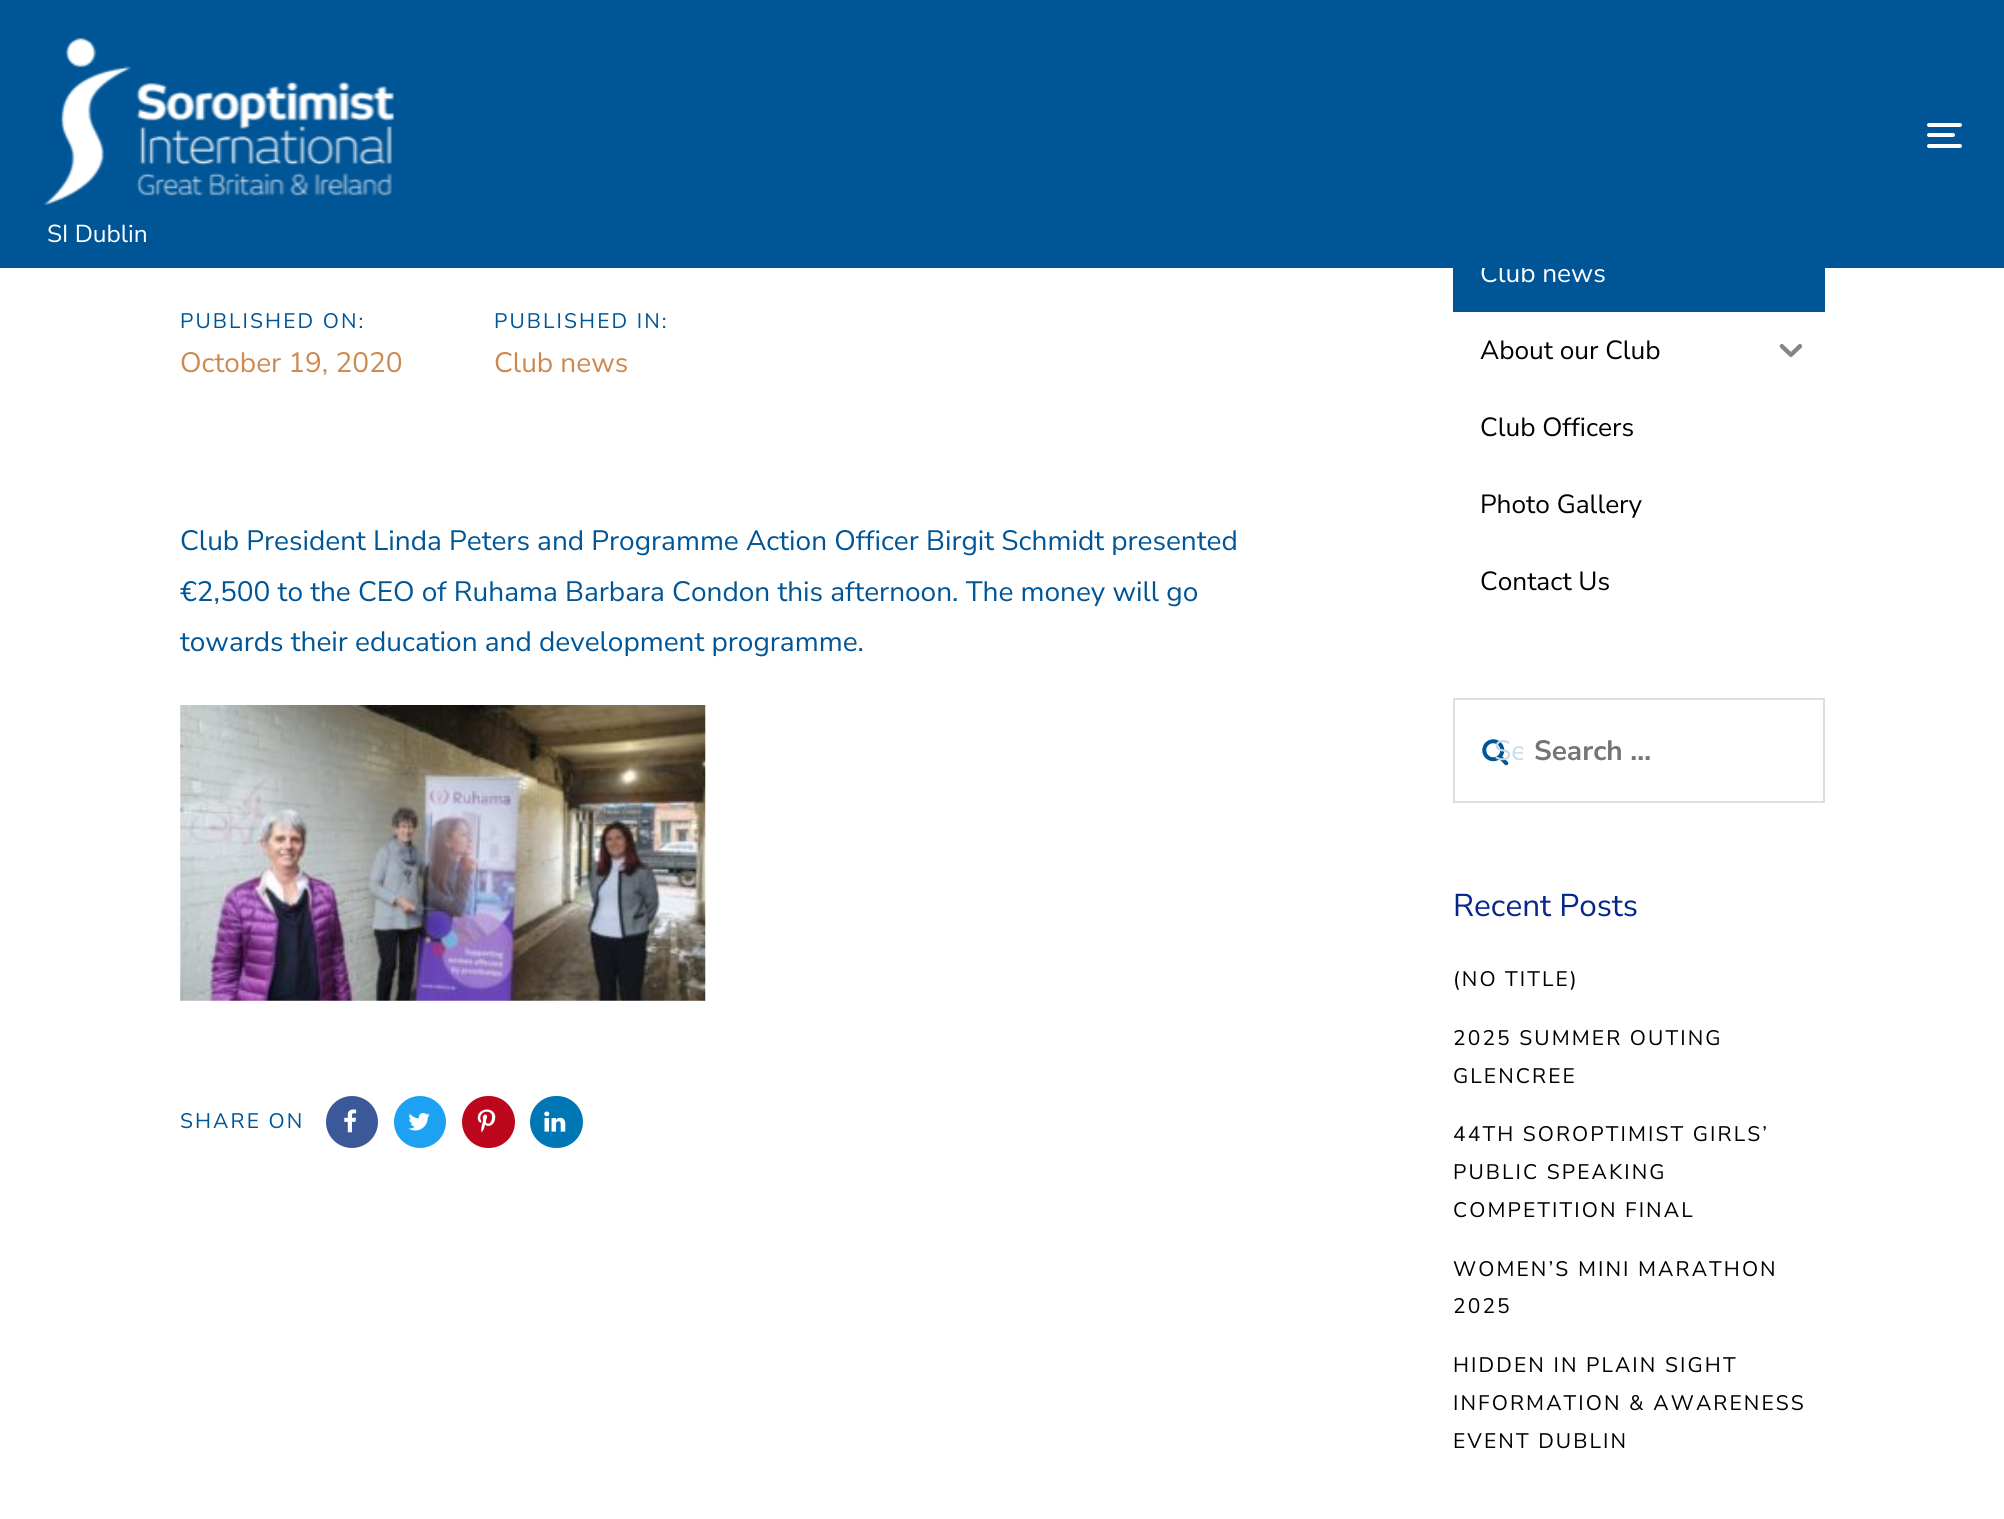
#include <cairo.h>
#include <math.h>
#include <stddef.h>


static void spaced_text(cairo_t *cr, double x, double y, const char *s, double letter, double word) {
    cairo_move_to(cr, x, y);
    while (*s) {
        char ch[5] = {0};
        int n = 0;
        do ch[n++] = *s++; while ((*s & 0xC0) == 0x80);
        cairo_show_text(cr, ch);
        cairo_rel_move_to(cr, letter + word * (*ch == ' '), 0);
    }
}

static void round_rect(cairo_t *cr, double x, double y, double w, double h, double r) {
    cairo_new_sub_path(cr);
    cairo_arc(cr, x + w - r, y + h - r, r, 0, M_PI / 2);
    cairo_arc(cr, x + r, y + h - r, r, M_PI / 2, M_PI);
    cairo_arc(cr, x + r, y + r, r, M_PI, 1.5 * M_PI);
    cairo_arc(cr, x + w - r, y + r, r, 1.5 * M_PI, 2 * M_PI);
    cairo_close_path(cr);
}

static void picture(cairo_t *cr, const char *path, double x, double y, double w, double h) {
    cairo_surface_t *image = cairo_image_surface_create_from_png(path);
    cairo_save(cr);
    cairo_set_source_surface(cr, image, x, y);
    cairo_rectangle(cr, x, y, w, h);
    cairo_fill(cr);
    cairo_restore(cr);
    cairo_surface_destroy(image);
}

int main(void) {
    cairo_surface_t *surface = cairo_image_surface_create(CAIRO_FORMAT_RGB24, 2004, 1519);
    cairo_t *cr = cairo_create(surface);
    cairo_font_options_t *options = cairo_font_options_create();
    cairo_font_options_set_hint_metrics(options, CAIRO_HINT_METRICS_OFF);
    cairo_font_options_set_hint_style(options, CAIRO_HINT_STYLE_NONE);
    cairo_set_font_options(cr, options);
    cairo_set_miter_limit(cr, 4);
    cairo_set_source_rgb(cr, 1, 1, 1);
    cairo_paint(cr);
    cairo_set_source_rgb(cr, 0, 0.333, 0.588);
    cairo_rectangle(cr, 1453, 268, 372, 44);
    cairo_fill(cr);
    cairo_select_font_face(cr, "Nunito Sans", CAIRO_FONT_SLANT_NORMAL, CAIRO_FONT_WEIGHT_NORMAL);
    cairo_set_font_size(cr, 26.25);
    cairo_set_source_rgb(cr, 1, 1, 1);
    cairo_move_to(cr, 1480, 282);
    cairo_show_text(cr, "Club news");
    cairo_set_source_rgb(cr, 0, 0.333, 0.588);
    cairo_rectangle(cr, 0, 0, 2004, 268);
    cairo_fill(cr);
    cairo_set_source_rgb(cr, 1, 1, 1);
    round_rect(cr, 1927, 123, 35, 4, 2);
    cairo_fill(cr);
    round_rect(cr, 1927, 133, 28, 4, 2);
    cairo_fill(cr);
    round_rect(cr, 1927, 144, 35, 4, 2);
    cairo_fill(cr);
    picture(cr, "img1.png", 43, 38, 351, 168);
    cairo_set_font_size(cr, 24.5);
    cairo_move_to(cr, 47, 242);
    cairo_show_text(cr, "SI Dublin");
    cairo_set_font_size(cr, 21);
    cairo_set_source_rgb(cr, 0, 0.333, 0.588);
    spaced_text(cr, 180, 328, "PUBLISHED ON:", 2.1, 0);
    cairo_set_font_size(cr, 28);
    cairo_set_source_rgb(cr, 0.804, 0.537, 0.306);
    cairo_move_to(cr, 180, 372);
    cairo_show_text(cr, "October 19, 2020");
    cairo_set_font_size(cr, 21);
    cairo_set_source_rgb(cr, 0, 0.333, 0.588);
    spaced_text(cr, 494, 328, "PUBLISHED IN:", 2.1, 0);
    cairo_set_font_size(cr, 28);
    cairo_set_source_rgb(cr, 0.804, 0.537, 0.306);
    cairo_move_to(cr, 494, 372);
    cairo_show_text(cr, "Club news");
    cairo_set_source_rgb(cr, 0, 0.333, 0.588);
    cairo_move_to(cr, 180, 550);
    cairo_show_text(cr, "Club President Linda Peters and Programme Action Officer Birgit Schmidt presented");
    cairo_move_to(cr, 180, 601);
    cairo_show_text(cr, "€2,500 to the CEO of Ruhama Barbara Condon this afternoon. The money will go");
    cairo_move_to(cr, 180, 651);
    cairo_show_text(cr, "towards their education and development programme.");
    picture(cr, "img2.png", 180, 705, 526, 296);
    cairo_set_font_size(cr, 21);
    spaced_text(cr, 180, 1128, "SHARE ON", 2.1, 0);
    cairo_set_source_rgb(cr, 0.231, 0.349, 0.596);
    cairo_new_path(cr);
    cairo_arc(cr, 352, 1122, 26, 0, 2 * M_PI);
    cairo_fill(cr);
    picture(cr, "img3.png", 344, 1109, 13, 24);
    cairo_set_source_rgb(cr, 0.114, 0.631, 0.949);
    cairo_arc(cr, 420, 1122, 26, 0, 2 * M_PI);
    cairo_fill(cr);
    picture(cr, "img4.png", 408, 1113, 22, 18);
    cairo_set_source_rgb(cr, 0.741, 0.031, 0.11);
    round_rect(cr, 462, 1096, 53, 52, 26);
    cairo_fill(cr);
    picture(cr, "img5.png", 477, 1109, 19, 24);
    cairo_set_source_rgb(cr, 0, 0.467, 0.71);
    round_rect(cr, 530, 1096, 53, 52, 26);
    cairo_fill(cr);
    picture(cr, "img6.png", 544, 1111, 22, 21);
    cairo_set_font_size(cr, 26.25);
    cairo_set_source_rgb(cr, 0, 0, 0);
    cairo_move_to(cr, 1480, 359);
    cairo_show_text(cr, "About our Club");
    picture(cr, "img7.png", 1779, 343, 23, 14);
    cairo_move_to(cr, 1480, 436);
    cairo_show_text(cr, "Club Officers");
    cairo_move_to(cr, 1480, 513);
    cairo_show_text(cr, "Photo Gallery");
    cairo_move_to(cr, 1480, 590);
    cairo_show_text(cr, "Contact Us");
    cairo_rectangle(cr, 1454, 699, 370, 103);
    cairo_set_source_rgb(cr, 0.871, 0.871, 0.871);
    cairo_stroke(cr);
    picture(cr, "img8.png", 1482, 739, 27, 27);
    cairo_save(cr);
    cairo_rectangle(cr, 1467, 698, 56, 105);
    cairo_clip(cr);
    cairo_set_font_size(cr, 28);
    cairo_set_source_rgb(cr, 0.78, 0.855, 0.91);
    cairo_move_to(cr, 1494, 760);
    cairo_show_text(cr, "Se");
    cairo_restore(cr);
    cairo_select_font_face(cr, "Nunito Sans", CAIRO_FONT_SLANT_NORMAL, CAIRO_FONT_WEIGHT_BOLD);
    cairo_set_font_size(cr, 28);
    cairo_set_source_rgb(cr, 0.459, 0.459, 0.459);
    cairo_move_to(cr, 1534, 760);
    cairo_show_text(cr, "Search …");
    cairo_select_font_face(cr, "Nunito Sans", CAIRO_FONT_SLANT_NORMAL, CAIRO_FONT_WEIGHT_NORMAL);
    cairo_set_font_size(cr, 31.5);
    cairo_set_source_rgb(cr, 0.027, 0.149, 0.549);
    cairo_move_to(cr, 1453, 916);
    cairo_show_text(cr, "Recent Posts");
    cairo_set_font_size(cr, 21);
    cairo_set_source_rgb(cr, 0, 0, 0);
    spaced_text(cr, 1453, 986, "(NO TITLE)", 2.1, 0);
    spaced_text(cr, 1453, 1045, "2025 SUMMER OUTING", 2.1, 0);
    spaced_text(cr, 1453, 1083, "GLENCREE", 2.1, 0);
    spaced_text(cr, 1453, 1141, "44TH SOROPTIMIST GIRLS’", 2.1, 0);
    spaced_text(cr, 1453, 1179, "PUBLIC SPEAKING", 2.1, 0);
    spaced_text(cr, 1453, 1217, "COMPETITION FINAL", 2.1, 0);
    spaced_text(cr, 1453, 1276, "WOMEN’S MINI MARATHON", 2.1, 0);
    spaced_text(cr, 1453, 1313, "2025", 2.1, 0);
    spaced_text(cr, 1453, 1372, "HIDDEN IN PLAIN SIGHT", 2.1, 0);
    spaced_text(cr, 1453, 1410, "INFORMATION & AWARENESS", 2.1, 0);
    spaced_text(cr, 1453, 1448, "EVENT DUBLIN", 2.1, 0);
    cairo_surface_write_to_png(surface, "page.png");
    cairo_font_options_destroy(options);
    cairo_destroy(cr);
    cairo_surface_destroy(surface);
    return 0;
}
